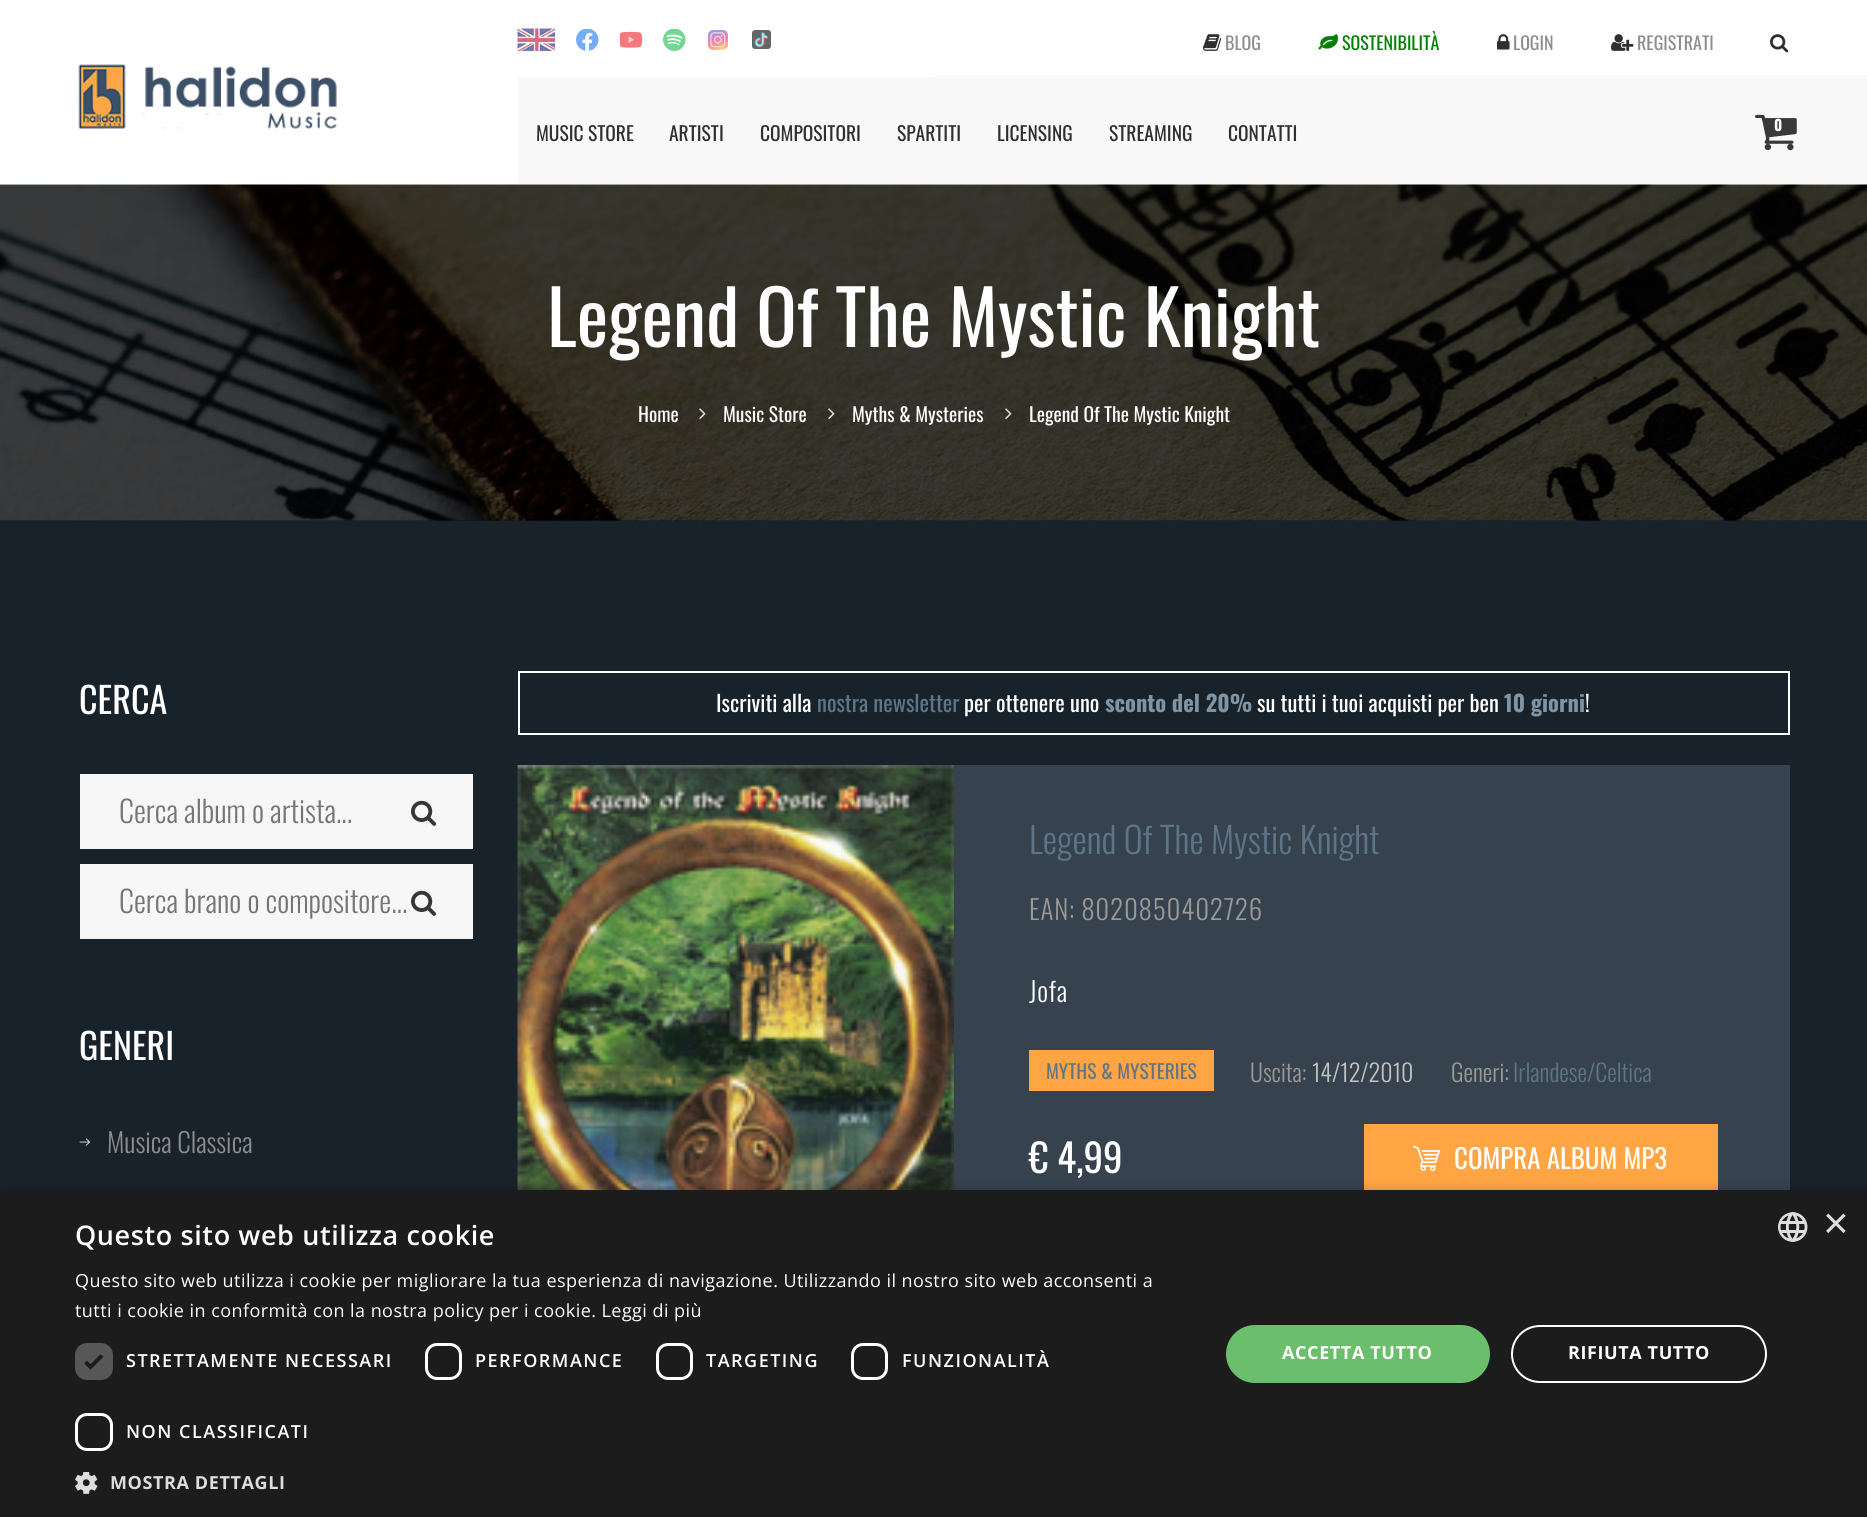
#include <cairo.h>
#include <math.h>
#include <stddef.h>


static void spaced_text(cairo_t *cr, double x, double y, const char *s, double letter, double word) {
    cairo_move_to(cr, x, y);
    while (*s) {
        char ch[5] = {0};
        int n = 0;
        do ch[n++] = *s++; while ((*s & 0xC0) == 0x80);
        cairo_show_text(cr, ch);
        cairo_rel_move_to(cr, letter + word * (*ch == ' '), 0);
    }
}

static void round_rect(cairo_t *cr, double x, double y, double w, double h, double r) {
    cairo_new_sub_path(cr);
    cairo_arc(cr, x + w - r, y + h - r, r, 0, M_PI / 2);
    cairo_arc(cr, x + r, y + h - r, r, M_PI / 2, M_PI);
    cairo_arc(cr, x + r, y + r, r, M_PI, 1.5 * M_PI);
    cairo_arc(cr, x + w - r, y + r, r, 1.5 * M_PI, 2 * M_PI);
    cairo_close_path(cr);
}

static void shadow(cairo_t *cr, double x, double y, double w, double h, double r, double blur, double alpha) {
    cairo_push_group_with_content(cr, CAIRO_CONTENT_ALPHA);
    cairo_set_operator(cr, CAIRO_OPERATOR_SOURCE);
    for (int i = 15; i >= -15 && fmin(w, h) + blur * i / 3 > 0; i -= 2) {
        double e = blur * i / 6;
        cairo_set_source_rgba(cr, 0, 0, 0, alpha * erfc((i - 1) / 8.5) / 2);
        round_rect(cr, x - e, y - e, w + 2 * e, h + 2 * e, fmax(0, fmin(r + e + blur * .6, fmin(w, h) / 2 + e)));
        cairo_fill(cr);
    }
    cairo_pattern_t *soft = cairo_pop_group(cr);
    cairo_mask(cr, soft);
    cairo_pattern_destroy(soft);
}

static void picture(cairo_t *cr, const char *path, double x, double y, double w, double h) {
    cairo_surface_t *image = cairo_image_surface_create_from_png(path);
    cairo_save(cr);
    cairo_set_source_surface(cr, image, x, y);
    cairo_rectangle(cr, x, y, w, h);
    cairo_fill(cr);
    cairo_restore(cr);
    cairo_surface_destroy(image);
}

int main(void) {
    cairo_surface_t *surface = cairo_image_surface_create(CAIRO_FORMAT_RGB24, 1867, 1517);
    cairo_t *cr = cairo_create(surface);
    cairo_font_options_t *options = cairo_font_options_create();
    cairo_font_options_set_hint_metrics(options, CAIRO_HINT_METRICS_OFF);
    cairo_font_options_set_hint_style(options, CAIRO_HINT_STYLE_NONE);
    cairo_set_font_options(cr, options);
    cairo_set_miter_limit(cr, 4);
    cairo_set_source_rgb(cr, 0.094, 0.133, 0.169);
    cairo_paint(cr);
    cairo_set_source_rgb(cr, 0.063, 0.086, 0.11);
    cairo_rectangle(cr, 0, 520, 1867, 1);
    cairo_fill(cr);
    cairo_set_source_rgb(cr, 1, 1, 1);
    cairo_rectangle(cr, 0, 0, 1867, 185);
    cairo_fill(cr);
    picture(cr, "img1.png", 78, 64, 259, 65);
    picture(cr, "img2.png", 517, 28, 38, 23);
    picture(cr, "img3.png", 576, 29, 23, 22);
    picture(cr, "img4.png", 620, 31, 22, 17);
    picture(cr, "img5.png", 663, 29, 23, 22);
    picture(cr, "img6.png", 708, 30, 20, 20);
    picture(cr, "img7.png", 752, 30, 19, 19);
    picture(cr, "img8.png", 1203, 34, 19, 17);
    cairo_select_font_face(cr, "Oswald", CAIRO_FONT_SLANT_NORMAL, CAIRO_FONT_WEIGHT_NORMAL);
    cairo_set_font_size(cr, 18);
    cairo_set_source_rgb(cr, 0.553, 0.553, 0.553);
    cairo_move_to(cr, 1225, 50);
    cairo_show_text(cr, "BLOG");
    picture(cr, "img9.png", 1318, 34, 20, 16);
    cairo_set_source_rgb(cr, 0, 0.502, 0);
    cairo_move_to(cr, 1342, 50);
    cairo_show_text(cr, "SOSTENIBILITÀ");
    picture(cr, "img10.png", 1497, 34, 13, 16);
    cairo_set_source_rgb(cr, 0.553, 0.553, 0.553);
    cairo_move_to(cr, 1513, 50);
    cairo_show_text(cr, "LOGIN");
    picture(cr, "img11.png", 1611, 34, 23, 17);
    cairo_move_to(cr, 1637, 50);
    cairo_show_text(cr, "REGISTRATI");
    picture(cr, "img12.png", 1770, 34, 19, 19);
    cairo_set_source_rgb(cr, 0.973, 0.973, 0.973);
    cairo_rectangle(cr, 518, 77, 417, 108);
    cairo_fill(cr);
    cairo_rectangle(cr, 935, 75, 932, 110);
    cairo_fill(cr);
    cairo_set_font_size(cr, 19.5);
    cairo_set_source_rgb(cr, 0.184, 0.184, 0.184);
    cairo_move_to(cr, 536, 141);
    cairo_show_text(cr, "MUSIC STORE");
    cairo_move_to(cr, 669, 141);
    cairo_show_text(cr, "ARTISTI");
    cairo_move_to(cr, 760, 141);
    cairo_show_text(cr, "COMPOSITORI");
    cairo_move_to(cr, 897, 141);
    cairo_show_text(cr, "SPARTITI");
    cairo_move_to(cr, 997, 141);
    cairo_show_text(cr, "LICENSING");
    cairo_move_to(cr, 1109, 141);
    cairo_show_text(cr, "STREAMING");
    cairo_move_to(cr, 1228, 141);
    cairo_show_text(cr, "CONTATTI");
    picture(cr, "img13.png", 1755, 114, 42, 37);
    cairo_select_font_face(cr, "Oswald", CAIRO_FONT_SLANT_NORMAL, CAIRO_FONT_WEIGHT_BOLD);
    cairo_set_font_size(cr, 15);
    cairo_set_source_rgb(cr, 1, 1, 1);
    cairo_move_to(cr, 1774, 131);
    cairo_show_text(cr, "0");
    picture(cr, "img14.png", 0, 184, 1867, 337);
    cairo_select_font_face(cr, "Oswald", CAIRO_FONT_SLANT_NORMAL, CAIRO_FONT_WEIGHT_NORMAL);
    cairo_set_font_size(cr, 75);
    cairo_move_to(cr, 547, 347);
    cairo_show_text(cr, "Legend Of The Mystic Knight");
    cairo_set_font_size(cr, 19.5);
    cairo_move_to(cr, 638, 422);
    cairo_show_text(cr, "Home");
    picture(cr, "img15.png", 699, 408, 7, 12);
    cairo_move_to(cr, 723, 422);
    cairo_show_text(cr, "Music Store");
    picture(cr, "img16.png", 828, 408, 7, 12);
    cairo_move_to(cr, 852, 422);
    cairo_show_text(cr, "Myths & Mysteries");
    picture(cr, "img17.png", 1005, 408, 7, 12);
    cairo_move_to(cr, 1029, 422);
    cairo_show_text(cr, "Legend Of The Mystic Knight");
    cairo_set_font_size(cr, 36);
    cairo_move_to(cr, 79, 714);
    cairo_show_text(cr, "CERCA");
    cairo_set_source_rgb(cr, 0.965, 0.965, 0.965);
    cairo_rectangle(cr, 80, 774, 393, 75);
    cairo_fill(cr);
    cairo_select_font_face(cr, "Oswald Light", CAIRO_FONT_SLANT_NORMAL, CAIRO_FONT_WEIGHT_NORMAL);
    cairo_set_font_size(cr, 30);
    cairo_set_source_rgb(cr, 0.459, 0.459, 0.459);
    cairo_move_to(cr, 119, 823);
    cairo_show_text(cr, "Cerca album o artista...");
    picture(cr, "img18.png", 411, 800, 25, 26);
    cairo_set_source_rgb(cr, 0.965, 0.965, 0.965);
    cairo_rectangle(cr, 80, 864, 393, 75);
    cairo_fill(cr);
    cairo_set_source_rgb(cr, 0.459, 0.459, 0.459);
    cairo_move_to(cr, 119, 913);
    cairo_show_text(cr, "Cerca brano o compositore...");
    picture(cr, "img18.png", 411, 890, 25, 26);
    cairo_select_font_face(cr, "Oswald", CAIRO_FONT_SLANT_NORMAL, CAIRO_FONT_WEIGHT_NORMAL);
    cairo_set_font_size(cr, 36);
    cairo_set_source_rgb(cr, 1, 1, 1);
    cairo_move_to(cr, 79, 1060);
    cairo_show_text(cr, "GENERI");
    picture(cr, "img19.png", 79, 1138, 11, 8);
    cairo_select_font_face(cr, "Oswald Light", CAIRO_FONT_SLANT_NORMAL, CAIRO_FONT_WEIGHT_NORMAL);
    cairo_set_font_size(cr, 27);
    cairo_set_source_rgb(cr, 0.553, 0.553, 0.553);
    cairo_move_to(cr, 107, 1153);
    cairo_show_text(cr, "Musica Classica");
    cairo_rectangle(cr, 519, 672, 1270, 62);
    cairo_set_source_rgb(cr, 1, 1, 1);
    cairo_stroke(cr);
    cairo_select_font_face(cr, "Oswald", CAIRO_FONT_SLANT_NORMAL, CAIRO_FONT_WEIGHT_NORMAL);
    cairo_set_font_size(cr, 22.5);
    cairo_move_to(cr, 716, 712);
    cairo_show_text(cr, "Iscriviti alla");
    cairo_set_source_rgb(cr, 0.369, 0.459, 0.529);
    cairo_move_to(cr, 817, 712);
    cairo_show_text(cr, "nostra newsletter");
    cairo_set_source_rgb(cr, 1, 1, 1);
    cairo_move_to(cr, 964, 712);
    cairo_show_text(cr, "per ottenere uno");
    cairo_select_font_face(cr, "Oswald", CAIRO_FONT_SLANT_NORMAL, CAIRO_FONT_WEIGHT_BOLD);
    cairo_set_source_rgb(cr, 0.502, 0.58, 0.639);
    cairo_move_to(cr, 1105, 712);
    cairo_show_text(cr, "sconto del 20%");
    cairo_select_font_face(cr, "Oswald", CAIRO_FONT_SLANT_NORMAL, CAIRO_FONT_WEIGHT_NORMAL);
    cairo_set_source_rgb(cr, 1, 1, 1);
    cairo_move_to(cr, 1257, 712);
    cairo_show_text(cr, "su tutti i tuoi acquisti per ben");
    cairo_select_font_face(cr, "Oswald", CAIRO_FONT_SLANT_NORMAL, CAIRO_FONT_WEIGHT_BOLD);
    cairo_set_source_rgb(cr, 0.502, 0.58, 0.639);
    cairo_move_to(cr, 1504, 712);
    cairo_show_text(cr, "10 giorni");
    cairo_select_font_face(cr, "Oswald", CAIRO_FONT_SLANT_NORMAL, CAIRO_FONT_WEIGHT_NORMAL);
    cairo_set_source_rgb(cr, 1, 1, 1);
    cairo_move_to(cr, 1585, 712);
    cairo_show_text(cr, "!");
    cairo_set_source_rgb(cr, 0.212, 0.259, 0.306);
    cairo_rectangle(cr, 954, 765, 836, 425);
    cairo_fill(cr);
    picture(cr, "img20.png", 517, 765, 437, 425);
    cairo_select_font_face(cr, "Oswald Light", CAIRO_FONT_SLANT_NORMAL, CAIRO_FONT_WEIGHT_NORMAL);
    cairo_set_font_size(cr, 36);
    cairo_set_source_rgb(cr, 0.369, 0.459, 0.529);
    cairo_move_to(cr, 1029, 854);
    cairo_show_text(cr, "Legend Of The Mystic Knight");
    cairo_set_font_size(cr, 27);
    cairo_set_source_rgb(cr, 0.604, 0.604, 0.604);
    spaced_text(cr, 1029, 920, "EAN: 8020850402726", 0.75, 0);
    cairo_set_source_rgb(cr, 1, 1, 1);
    spaced_text(cr, 1029, 1002, "Jofa", 0.75, 0);
    cairo_set_source_rgb(cr, 1, 0.647, 0.267);
    cairo_rectangle(cr, 1029, 1050, 185, 41);
    cairo_fill(cr);
    cairo_select_font_face(cr, "Oswald", CAIRO_FONT_SLANT_NORMAL, CAIRO_FONT_WEIGHT_NORMAL);
    cairo_set_font_size(cr, 19.5);
    cairo_set_source_rgb(cr, 0.369, 0.459, 0.529);
    cairo_move_to(cr, 1046, 1079);
    cairo_show_text(cr, "MYTHS & MYSTERIES");
    cairo_select_font_face(cr, "Oswald Light", CAIRO_FONT_SLANT_NORMAL, CAIRO_FONT_WEIGHT_NORMAL);
    cairo_set_font_size(cr, 24);
    cairo_set_source_rgb(cr, 0.604, 0.604, 0.604);
    cairo_move_to(cr, 1250, 1082);
    cairo_show_text(cr, "Uscita:");
    cairo_set_source_rgb(cr, 0.769, 0.769, 0.769);
    cairo_move_to(cr, 1312, 1082);
    cairo_show_text(cr, "14/12/2010");
    cairo_set_source_rgb(cr, 0.604, 0.604, 0.604);
    cairo_move_to(cr, 1451, 1082);
    cairo_show_text(cr, "Generi:");
    cairo_set_source_rgb(cr, 0.369, 0.459, 0.529);
    cairo_move_to(cr, 1513, 1082);
    cairo_show_text(cr, "Irlandese/Celtica");
    cairo_select_font_face(cr, "Oswald", CAIRO_FONT_SLANT_NORMAL, CAIRO_FONT_WEIGHT_NORMAL);
    cairo_set_font_size(cr, 39);
    cairo_set_source_rgb(cr, 1, 1, 1);
    cairo_move_to(cr, 1029, 1173);
    cairo_show_text(cr, "€ 4,99");
    cairo_set_source_rgb(cr, 1, 0.647, 0.267);
    cairo_rectangle(cr, 1364, 1124, 354, 66);
    cairo_fill(cr);
    picture(cr, "img21.png", 1413, 1145, 27, 27);
    cairo_set_font_size(cr, 27);
    cairo_set_source_rgb(cr, 1, 1, 1);
    cairo_move_to(cr, 1454, 1169);
    cairo_show_text(cr, "COMPRA ALBUM MP3");
    cairo_set_source_rgb(cr, 0, 0, 0);
    shadow(cr, 2, 1193, 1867, 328, 0, 6, 0.35);
    cairo_set_source_rgb(cr, 0.11, 0.11, 0.11);
    cairo_rectangle(cr, 0, 1190, 1867, 327);
    cairo_fill(cr);
    cairo_select_font_face(cr, "Open Sans SemiBold", CAIRO_FONT_SLANT_NORMAL, CAIRO_FONT_WEIGHT_NORMAL);
    cairo_set_source_rgb(cr, 1, 1, 1);
    spaced_text(cr, 75, 1245, "Questo sito web utilizza cookie", 0.6, 0);
    cairo_select_font_face(cr, "Open Sans", CAIRO_FONT_SLANT_NORMAL, CAIRO_FONT_WEIGHT_NORMAL);
    cairo_set_font_size(cr, 18);
    spaced_text(cr, 75, 1287, "Questo sito web utilizza i cookie per migliorare la tua esperienza di navigazione. Utilizzando il nostro sito web acconsenti a", 0.45, 0);
    spaced_text(cr, 75, 1317, "tutti i cookie in conformità con la nostra policy per i cookie. Leggi di più", 0.45, 0);
    cairo_set_source_rgb(cr, 0.341, 0.341, 0.341);
    round_rect(cr, 75, 1343, 38, 37, 12);
    cairo_fill(cr);
    cairo_new_path(cr);
    cairo_move_to(cr, 85.5, 1362);
    cairo_line_to(cr, 90.5, 1367);
    cairo_line_to(cr, 102, 1355.5);
    cairo_set_source_rgb(cr, 0.11, 0.11, 0.11);
    cairo_set_line_width(cr, 3.9);
    cairo_stroke(cr);
    cairo_select_font_face(cr, "Open Sans SemiBold", CAIRO_FONT_SLANT_NORMAL, CAIRO_FONT_WEIGHT_NORMAL);
    cairo_set_source_rgb(cr, 1, 1, 1);
    spaced_text(cr, 126, 1367, "STRETTAMENTE NECESSARI", 1.5, 0);
    round_rect(cr, 426.5, 1344.5, 34, 34, 10.5);
    cairo_set_line_width(cr, 3);
    cairo_stroke(cr);
    spaced_text(cr, 475, 1367, "PERFORMANCE", 1.5, 0);
    round_rect(cr, 657.5, 1344.5, 34, 34, 10.5);
    cairo_stroke(cr);
    spaced_text(cr, 706, 1367, "TARGETING", 1.5, 0);
    round_rect(cr, 852.5, 1344.5, 34, 34, 10.5);
    cairo_stroke(cr);
    spaced_text(cr, 902, 1367, "FUNZIONALITÀ", 1.5, 0);
    round_rect(cr, 76.5, 1414.5, 35, 35, 10.5);
    cairo_stroke(cr);
    spaced_text(cr, 126, 1438, "NON CLASSIFICATI", 1.5, 0);
    picture(cr, "img22.png", 75, 1472, 23, 22);
    cairo_select_font_face(cr, "Open Sans", CAIRO_FONT_SLANT_NORMAL, CAIRO_FONT_WEIGHT_BOLD);
    cairo_set_source_rgb(cr, 0.867, 0.867, 0.867);
    spaced_text(cr, 110, 1489, "MOSTRA DETTAGLI", 0.6, 0);
    cairo_set_source_rgb(cr, 0.42, 0.745, 0.42);
    round_rect(cr, 1226, 1325, 264, 58, 29);
    cairo_fill(cr);
    cairo_set_source_rgb(cr, 1, 1, 1);
    spaced_text(cr, 1282, 1359, "ACCETTA TUTTO", 0.6, 0);
    round_rect(cr, 1512, 1326, 254, 56, 28);
    cairo_set_line_width(cr, 2);
    cairo_stroke(cr);
    spaced_text(cr, 1568, 1359, "RIFIUTA TUTTO", 0.6, 0);
    picture(cr, "img23.png", 1778, 1212, 30, 30);
    cairo_select_font_face(cr, "Liberation Sans", CAIRO_FONT_SLANT_NORMAL, CAIRO_FONT_WEIGHT_NORMAL);
    cairo_set_font_size(cr, 44);
    cairo_set_source_rgb(cr, 0.867, 0.867, 0.867);
    cairo_move_to(cr, 1823, 1238);
    cairo_show_text(cr, "×");
    cairo_surface_write_to_png(surface, "page.png");
    cairo_font_options_destroy(options);
    cairo_destroy(cr);
    cairo_surface_destroy(surface);
    return 0;
}
